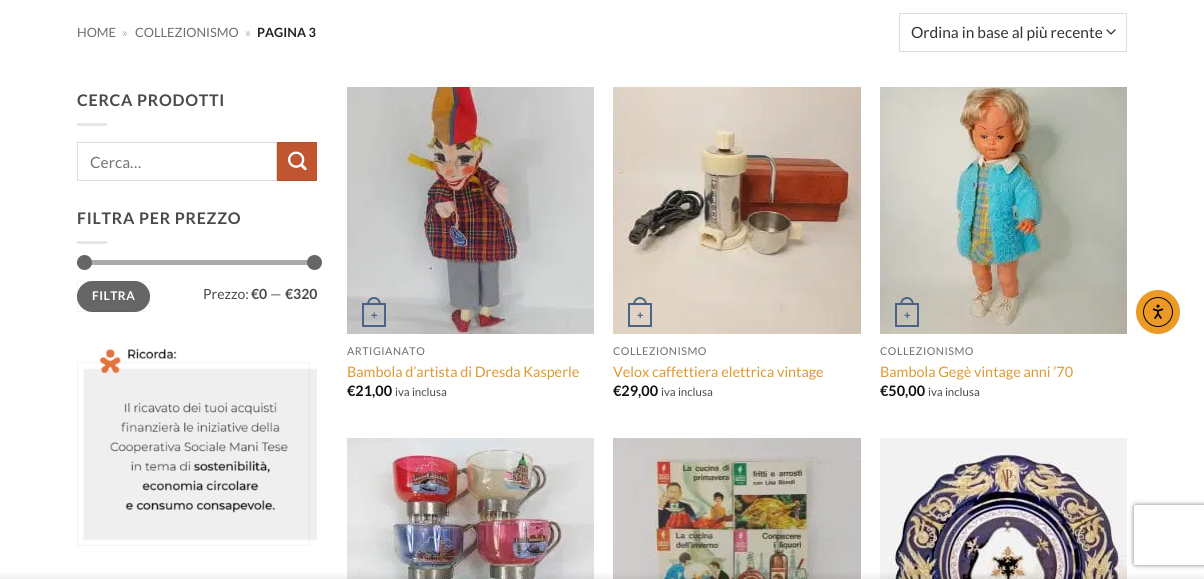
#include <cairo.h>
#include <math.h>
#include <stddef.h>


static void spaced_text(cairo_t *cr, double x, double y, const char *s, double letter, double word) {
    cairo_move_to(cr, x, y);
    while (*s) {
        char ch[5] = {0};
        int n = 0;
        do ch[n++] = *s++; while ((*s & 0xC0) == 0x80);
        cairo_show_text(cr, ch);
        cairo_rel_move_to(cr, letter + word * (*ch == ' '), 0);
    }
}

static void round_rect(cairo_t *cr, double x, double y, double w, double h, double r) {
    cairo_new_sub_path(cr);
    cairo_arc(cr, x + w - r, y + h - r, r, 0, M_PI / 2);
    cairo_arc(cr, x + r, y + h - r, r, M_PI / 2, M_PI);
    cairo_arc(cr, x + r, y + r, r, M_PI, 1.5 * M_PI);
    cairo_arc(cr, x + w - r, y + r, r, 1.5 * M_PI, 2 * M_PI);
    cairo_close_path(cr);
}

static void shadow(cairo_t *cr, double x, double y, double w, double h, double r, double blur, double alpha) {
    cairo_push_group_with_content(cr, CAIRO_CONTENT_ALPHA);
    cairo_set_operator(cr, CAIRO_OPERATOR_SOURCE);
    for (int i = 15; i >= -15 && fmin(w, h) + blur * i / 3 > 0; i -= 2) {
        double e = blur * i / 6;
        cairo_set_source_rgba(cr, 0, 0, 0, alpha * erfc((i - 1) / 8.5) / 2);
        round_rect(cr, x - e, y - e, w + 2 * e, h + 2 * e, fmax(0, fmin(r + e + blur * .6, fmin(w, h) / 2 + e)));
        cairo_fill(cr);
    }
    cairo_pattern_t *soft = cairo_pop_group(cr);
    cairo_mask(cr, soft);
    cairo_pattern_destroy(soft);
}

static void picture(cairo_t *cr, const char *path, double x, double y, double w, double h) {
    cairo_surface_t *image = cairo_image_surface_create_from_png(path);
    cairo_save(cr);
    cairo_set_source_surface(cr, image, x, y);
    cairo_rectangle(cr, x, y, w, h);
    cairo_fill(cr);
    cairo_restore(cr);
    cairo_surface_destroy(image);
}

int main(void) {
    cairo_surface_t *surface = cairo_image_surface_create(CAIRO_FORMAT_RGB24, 1204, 579);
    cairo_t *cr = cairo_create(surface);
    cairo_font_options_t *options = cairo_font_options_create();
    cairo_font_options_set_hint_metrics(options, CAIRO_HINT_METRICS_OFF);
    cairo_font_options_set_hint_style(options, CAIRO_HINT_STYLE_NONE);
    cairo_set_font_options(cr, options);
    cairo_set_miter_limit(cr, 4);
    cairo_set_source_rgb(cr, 1, 1, 1);
    cairo_paint(cr);
    cairo_select_font_face(cr, "Lato", CAIRO_FONT_SLANT_NORMAL, CAIRO_FONT_WEIGHT_NORMAL);
    cairo_set_font_size(cr, 12.75);
    cairo_set_source_rgb(cr, 0.431, 0.431, 0.431);
    cairo_move_to(cr, 77, 37);
    cairo_show_text(cr, "HOME");
    cairo_set_source_rgb(cr, 0.698, 0.698, 0.698);
    cairo_move_to(cr, 122, 37);
    cairo_show_text(cr, "»");
    cairo_set_source_rgb(cr, 0.431, 0.431, 0.431);
    cairo_move_to(cr, 135, 37);
    cairo_show_text(cr, "COLLEZIONISMO");
    cairo_set_source_rgb(cr, 0.698, 0.698, 0.698);
    cairo_move_to(cr, 245, 37);
    cairo_show_text(cr, "»");
    cairo_select_font_face(cr, "Lato", CAIRO_FONT_SLANT_NORMAL, CAIRO_FONT_WEIGHT_BOLD);
    cairo_set_source_rgb(cr, 0.133, 0.133, 0.133);
    cairo_move_to(cr, 257, 37);
    cairo_show_text(cr, "PAGINA 3");
    cairo_new_path(cr);
    cairo_move_to(cr, 1107, 30);
    cairo_line_to(cr, 1111, 34);
    cairo_line_to(cr, 1115, 30);
    cairo_set_source_rgb(cr, 0.2, 0.2, 0.2);
    cairo_set_line_width(cr, 1.3);
    cairo_set_line_cap(cr, CAIRO_LINE_CAP_ROUND);
    cairo_set_line_join(cr, CAIRO_LINE_JOIN_ROUND);
    cairo_stroke(cr);
    cairo_rectangle(cr, 899.5, 13.5, 227, 38);
    cairo_set_source_rgb(cr, 0.867, 0.867, 0.867);
    cairo_set_line_width(cr, 1);
    cairo_set_line_cap(cr, CAIRO_LINE_CAP_BUTT);
    cairo_set_line_join(cr, CAIRO_LINE_JOIN_MITER);
    cairo_stroke(cr);
    cairo_select_font_face(cr, "Lato", CAIRO_FONT_SLANT_NORMAL, CAIRO_FONT_WEIGHT_NORMAL);
    cairo_set_font_size(cr, 15.5);
    cairo_set_source_rgb(cr, 0.2, 0.2, 0.2);
    cairo_move_to(cr, 911, 38);
    cairo_show_text(cr, "Ordina in base al più recente");
    cairo_select_font_face(cr, "Lato", CAIRO_FONT_SLANT_NORMAL, CAIRO_FONT_WEIGHT_BOLD);
    cairo_set_font_size(cr, 16);
    cairo_set_source_rgb(cr, 0.29, 0.29, 0.29);
    spaced_text(cr, 77, 106, "CERCA PRODOTTI", 0.75, 0);
    cairo_set_source_rgb(cr, 0.902, 0.902, 0.902);
    cairo_rectangle(cr, 77, 123, 30, 3);
    cairo_fill(cr);
    cairo_rectangle(cr, 77.5, 142.5, 199, 38);
    cairo_set_source_rgb(cr, 0.867, 0.867, 0.867);
    cairo_stroke(cr);
    cairo_select_font_face(cr, "Lato", CAIRO_FONT_SLANT_NORMAL, CAIRO_FONT_WEIGHT_NORMAL);
    cairo_set_font_size(cr, 15.5);
    cairo_set_source_rgb(cr, 0.459, 0.459, 0.459);
    cairo_move_to(cr, 90, 168);
    cairo_show_text(cr, "Cerca…");
    cairo_set_source_rgb(cr, 0.753, 0.333, 0.188);
    cairo_rectangle(cr, 277.5, 142.5, 39, 38);
    cairo_fill_preserve(cr);
    cairo_set_source_rgb(cr, 0.714, 0.318, 0.18);
    cairo_stroke(cr);
    picture(cr, "img1.png", 288, 151, 19, 20);
    cairo_select_font_face(cr, "Lato", CAIRO_FONT_SLANT_NORMAL, CAIRO_FONT_WEIGHT_BOLD);
    cairo_set_font_size(cr, 16);
    cairo_set_source_rgb(cr, 0.29, 0.29, 0.29);
    spaced_text(cr, 77, 224, "FILTRA PER PREZZO", 0.75, 0);
    cairo_set_source_rgb(cr, 0.902, 0.902, 0.902);
    cairo_rectangle(cr, 77, 241, 30, 3);
    cairo_fill(cr);
    cairo_set_source_rgb(cr, 0.945, 0.945, 0.945);
    round_rect(cr, 77, 260, 240, 5, 2.5);
    cairo_fill(cr);
    cairo_set_source_rgba(cr, 0.4, 0.4, 0.4, 0.5);
    round_rect(cr, 77, 260, 240, 5, 2.5);
    cairo_fill(cr);
    cairo_set_source_rgb(cr, 0.4, 0.4, 0.4);
    cairo_arc(cr, 84.5, 262.5, 7.5, 0, 2 * M_PI);
    cairo_fill(cr);
    cairo_arc(cr, 314.5, 262.5, 7.5, 0, 2 * M_PI);
    cairo_fill(cr);
    round_rect(cr, 77, 281, 73, 31, 15.5);
    cairo_fill(cr);
    cairo_rectangle(cr, 77.5, 281.5, 72, 30);
    cairo_set_source_rgba(cr, 0, 0, 0, 0.05);
    cairo_stroke(cr);
    cairo_set_font_size(cr, 12);
    cairo_set_source_rgb(cr, 1, 1, 1);
    spaced_text(cr, 92, 300, "FILTRA", 0.5, 0);
    cairo_select_font_face(cr, "Lato", CAIRO_FONT_SLANT_NORMAL, CAIRO_FONT_WEIGHT_NORMAL);
    cairo_set_font_size(cr, 14);
    cairo_set_source_rgb(cr, 0.29, 0.29, 0.29);
    cairo_move_to(cr, 203, 299);
    cairo_show_text(cr, "Prezzo:");
    cairo_select_font_face(cr, "Lato", CAIRO_FONT_SLANT_NORMAL, CAIRO_FONT_WEIGHT_BOLD);
    cairo_move_to(cr, 251, 299);
    cairo_show_text(cr, "€0");
    cairo_select_font_face(cr, "Lato", CAIRO_FONT_SLANT_NORMAL, CAIRO_FONT_WEIGHT_NORMAL);
    cairo_move_to(cr, 270, 299);
    cairo_show_text(cr, "—");
    cairo_select_font_face(cr, "Lato", CAIRO_FONT_SLANT_NORMAL, CAIRO_FONT_WEIGHT_BOLD);
    cairo_move_to(cr, 285, 299);
    cairo_show_text(cr, "€320");
    picture(cr, "img2.png", 77, 348, 240, 198);
    picture(cr, "img3.png", 347, 87, 247, 247);
    cairo_rectangle(cr, 363, 304, 22, 22);
    cairo_set_source_rgba(cr, 0.267, 0.376, 0.518, 0.95);
    cairo_set_line_width(cr, 2);
    cairo_stroke(cr);
    cairo_set_fill_rule(cr, CAIRO_FILL_RULE_EVEN_ODD);
    cairo_new_path(cr);
    cairo_move_to(cr, 374, 297);
    cairo_curve_to(cr, 378.5, 297, 381, 301, 381, 305);
    cairo_line_to(cr, 367, 305);
    cairo_curve_to(cr, 367, 301, 369.5, 297, 374, 297);
    cairo_close_path(cr);
    cairo_move_to(cr, 374, 299);
    cairo_curve_to(cr, 377.5, 299, 379, 302, 379, 305);
    cairo_line_to(cr, 369, 305);
    cairo_curve_to(cr, 369, 302, 370.5, 299, 374, 299);
    cairo_close_path(cr);
    cairo_fill(cr);
    cairo_select_font_face(cr, "Liberation Sans", CAIRO_FONT_SLANT_NORMAL, CAIRO_FONT_WEIGHT_BOLD);
    cairo_set_font_size(cr, 11);
    cairo_set_source_rgb(cr, 0.29, 0.396, 0.529);
    cairo_move_to(cr, 371, 319);
    cairo_show_text(cr, "+");
    cairo_select_font_face(cr, "Lato", CAIRO_FONT_SLANT_NORMAL, CAIRO_FONT_WEIGHT_NORMAL);
    cairo_set_font_size(cr, 10.75);
    cairo_set_source_rgb(cr, 0.431, 0.431, 0.431);
    spaced_text(cr, 347, 355, "ARTIGIANATO", 0.5, 0);
    cairo_set_font_size(cr, 14.4);
    cairo_set_source_rgb(cr, 0.867, 0.6, 0.2);
    cairo_move_to(cr, 347, 377);
    cairo_show_text(cr, "Bambola d’artista di Dresda Kasperle");
    cairo_select_font_face(cr, "Lato", CAIRO_FONT_SLANT_NORMAL, CAIRO_FONT_WEIGHT_BOLD);
    cairo_set_source_rgb(cr, 0.067, 0.067, 0.067);
    cairo_move_to(cr, 347, 396);
    cairo_show_text(cr, "€21,00");
    cairo_select_font_face(cr, "Lato", CAIRO_FONT_SLANT_NORMAL, CAIRO_FONT_WEIGHT_NORMAL);
    cairo_set_font_size(cr, 11.5);
    cairo_set_source_rgb(cr, 0.29, 0.29, 0.29);
    cairo_move_to(cr, 395, 396);
    cairo_show_text(cr, "iva inclusa");
    picture(cr, "img4.png", 613, 87, 248, 247);
    cairo_rectangle(cr, 629, 304, 22, 22);
    cairo_set_source_rgba(cr, 0.267, 0.376, 0.518, 0.95);
    cairo_stroke(cr);
    cairo_new_path(cr);
    cairo_move_to(cr, 640, 297);
    cairo_curve_to(cr, 644.5, 297, 647, 301, 647, 305);
    cairo_line_to(cr, 633, 305);
    cairo_curve_to(cr, 633, 301, 635.5, 297, 640, 297);
    cairo_close_path(cr);
    cairo_move_to(cr, 640, 299);
    cairo_curve_to(cr, 643.5, 299, 645, 302, 645, 305);
    cairo_line_to(cr, 635, 305);
    cairo_curve_to(cr, 635, 302, 636.5, 299, 640, 299);
    cairo_close_path(cr);
    cairo_fill(cr);
    cairo_select_font_face(cr, "Liberation Sans", CAIRO_FONT_SLANT_NORMAL, CAIRO_FONT_WEIGHT_BOLD);
    cairo_set_font_size(cr, 11);
    cairo_set_source_rgb(cr, 0.29, 0.396, 0.529);
    cairo_move_to(cr, 637, 319);
    cairo_show_text(cr, "+");
    cairo_select_font_face(cr, "Lato", CAIRO_FONT_SLANT_NORMAL, CAIRO_FONT_WEIGHT_NORMAL);
    cairo_set_font_size(cr, 10.75);
    cairo_set_source_rgb(cr, 0.431, 0.431, 0.431);
    spaced_text(cr, 613, 355, "COLLEZIONISMO", 0.5, 0);
    cairo_set_font_size(cr, 14.4);
    cairo_set_source_rgb(cr, 0.867, 0.6, 0.2);
    cairo_move_to(cr, 613, 377);
    cairo_show_text(cr, "Velox caffettiera elettrica vintage");
    cairo_select_font_face(cr, "Lato", CAIRO_FONT_SLANT_NORMAL, CAIRO_FONT_WEIGHT_BOLD);
    cairo_set_source_rgb(cr, 0.067, 0.067, 0.067);
    cairo_move_to(cr, 613, 396);
    cairo_show_text(cr, "€29,00");
    cairo_select_font_face(cr, "Lato", CAIRO_FONT_SLANT_NORMAL, CAIRO_FONT_WEIGHT_NORMAL);
    cairo_set_font_size(cr, 11.5);
    cairo_set_source_rgb(cr, 0.29, 0.29, 0.29);
    cairo_move_to(cr, 661, 396);
    cairo_show_text(cr, "iva inclusa");
    picture(cr, "img5.png", 880, 87, 247, 247);
    cairo_rectangle(cr, 896, 304, 22, 22);
    cairo_set_source_rgba(cr, 0.267, 0.376, 0.518, 0.95);
    cairo_stroke(cr);
    cairo_new_path(cr);
    cairo_move_to(cr, 907, 297);
    cairo_curve_to(cr, 911.5, 297, 914, 301, 914, 305);
    cairo_line_to(cr, 900, 305);
    cairo_curve_to(cr, 900, 301, 902.5, 297, 907, 297);
    cairo_close_path(cr);
    cairo_move_to(cr, 907, 299);
    cairo_curve_to(cr, 910.5, 299, 912, 302, 912, 305);
    cairo_line_to(cr, 902, 305);
    cairo_curve_to(cr, 902, 302, 903.5, 299, 907, 299);
    cairo_close_path(cr);
    cairo_fill(cr);
    cairo_select_font_face(cr, "Liberation Sans", CAIRO_FONT_SLANT_NORMAL, CAIRO_FONT_WEIGHT_BOLD);
    cairo_set_font_size(cr, 11);
    cairo_set_source_rgb(cr, 0.29, 0.396, 0.529);
    cairo_move_to(cr, 904, 319);
    cairo_show_text(cr, "+");
    cairo_select_font_face(cr, "Lato", CAIRO_FONT_SLANT_NORMAL, CAIRO_FONT_WEIGHT_NORMAL);
    cairo_set_font_size(cr, 10.75);
    cairo_set_source_rgb(cr, 0.431, 0.431, 0.431);
    spaced_text(cr, 880, 355, "COLLEZIONISMO", 0.5, 0);
    cairo_set_font_size(cr, 14.4);
    cairo_set_source_rgb(cr, 0.867, 0.6, 0.2);
    cairo_move_to(cr, 880, 377);
    cairo_show_text(cr, "Bambola Gegè vintage anni ’70");
    cairo_select_font_face(cr, "Lato", CAIRO_FONT_SLANT_NORMAL, CAIRO_FONT_WEIGHT_BOLD);
    cairo_set_source_rgb(cr, 0.067, 0.067, 0.067);
    cairo_move_to(cr, 880, 396);
    cairo_show_text(cr, "€50,00");
    cairo_select_font_face(cr, "Lato", CAIRO_FONT_SLANT_NORMAL, CAIRO_FONT_WEIGHT_NORMAL);
    cairo_set_font_size(cr, 11.5);
    cairo_set_source_rgb(cr, 0.29, 0.29, 0.29);
    cairo_move_to(cr, 928, 396);
    cairo_show_text(cr, "iva inclusa");
    picture(cr, "img6.png", 347, 438, 247, 141);
    picture(cr, "img7.png", 613, 438, 248, 141);
    picture(cr, "img8.png", 880, 438, 247, 141);
    cairo_set_source_rgb(cr, 0.922, 0.604, 0.149);
    cairo_arc(cr, 1158, 312, 22, 0, 2 * M_PI);
    cairo_fill(cr);
    cairo_arc(cr, 1158, 312, 14.5, 0, 2 * M_PI);
    cairo_set_source_rgb(cr, 0, 0, 0);
    cairo_set_line_width(cr, 1);
    cairo_stroke(cr);
    picture(cr, "img9.png", 1152, 304, 12, 15);
    cairo_save(cr);
    cairo_new_path(cr);
    cairo_move_to(cr, 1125, 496);
    cairo_line_to(cr, 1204, 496);
    cairo_line_to(cr, 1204, 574);
    cairo_line_to(cr, 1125, 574);
    cairo_close_path(cr);
    cairo_move_to(cr, 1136, 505);
    cairo_line_to(cr, 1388, 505);
    cairo_curve_to(cr, 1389, 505, 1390, 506, 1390, 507);
    cairo_line_to(cr, 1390, 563);
    cairo_curve_to(cr, 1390, 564, 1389, 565, 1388, 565);
    cairo_line_to(cr, 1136, 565);
    cairo_curve_to(cr, 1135, 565, 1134, 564, 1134, 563);
    cairo_line_to(cr, 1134, 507);
    cairo_curve_to(cr, 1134, 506, 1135, 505, 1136, 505);
    cairo_close_path(cr);
    cairo_clip(cr);
    cairo_set_source_rgb(cr, 0.502, 0.502, 0.502);
    shadow(cr, 1134, 505, 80, 60, 2, 2.5, 1);
    cairo_restore(cr);
    cairo_set_source_rgb(cr, 0, 0, 0);
    shadow(cr, 0, 579, 1204, 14, 0, 4.5, 0.14);
    cairo_surface_write_to_png(surface, "page.png");
    cairo_font_options_destroy(options);
    cairo_destroy(cr);
    cairo_surface_destroy(surface);
    return 0;
}
